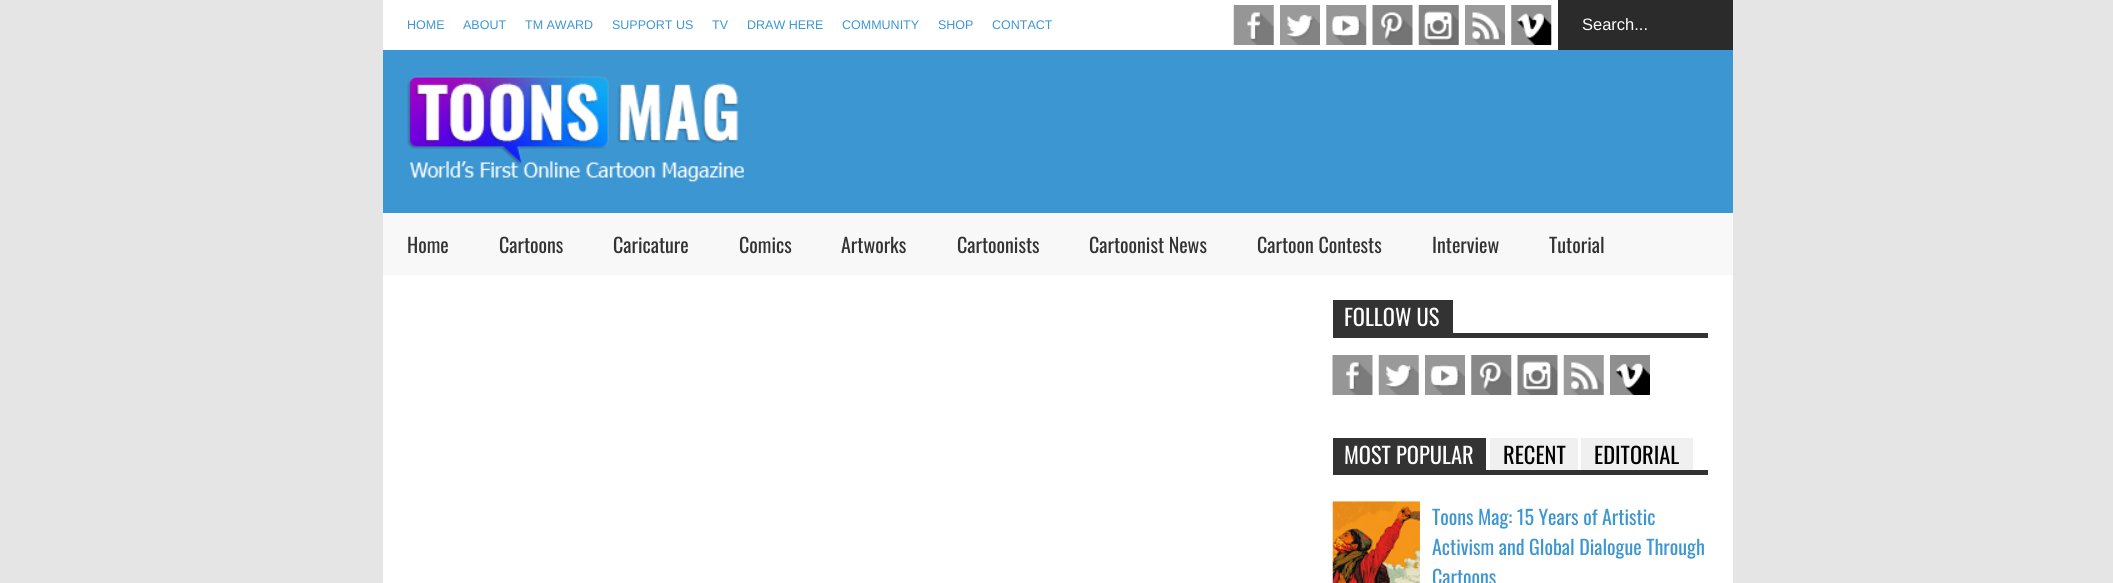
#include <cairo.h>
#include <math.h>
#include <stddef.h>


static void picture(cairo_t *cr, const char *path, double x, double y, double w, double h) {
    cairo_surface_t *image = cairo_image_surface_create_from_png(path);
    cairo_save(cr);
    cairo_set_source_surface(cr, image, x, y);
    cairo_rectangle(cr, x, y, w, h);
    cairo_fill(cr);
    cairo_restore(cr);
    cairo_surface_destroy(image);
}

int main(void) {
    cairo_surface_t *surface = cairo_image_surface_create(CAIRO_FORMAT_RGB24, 2113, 583);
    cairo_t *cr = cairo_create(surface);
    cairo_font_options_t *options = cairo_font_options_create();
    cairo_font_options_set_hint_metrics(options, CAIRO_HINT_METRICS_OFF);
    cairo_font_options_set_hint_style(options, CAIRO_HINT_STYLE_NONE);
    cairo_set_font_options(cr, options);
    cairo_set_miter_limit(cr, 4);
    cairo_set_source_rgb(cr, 0.898, 0.898, 0.898);
    cairo_paint(cr);
    cairo_set_source_rgb(cr, 1, 1, 1);
    cairo_rectangle(cr, 383, 0, 1350, 583);
    cairo_fill(cr);
    cairo_select_font_face(cr, "Liberation Sans", CAIRO_FONT_SLANT_NORMAL, CAIRO_FONT_WEIGHT_NORMAL);
    cairo_set_font_size(cr, 12.5);
    cairo_set_source_rgb(cr, 0.235, 0.588, 0.824);
    cairo_move_to(cr, 407, 29);
    cairo_show_text(cr, "HOME");
    cairo_move_to(cr, 463, 29);
    cairo_show_text(cr, "ABOUT");
    cairo_move_to(cr, 525, 29);
    cairo_show_text(cr, "TM AWARD");
    cairo_move_to(cr, 612, 29);
    cairo_show_text(cr, "SUPPORT US");
    cairo_move_to(cr, 712, 29);
    cairo_show_text(cr, "TV");
    cairo_move_to(cr, 747, 29);
    cairo_show_text(cr, "DRAW HERE");
    cairo_move_to(cr, 842, 29);
    cairo_show_text(cr, "COMMUNITY");
    cairo_move_to(cr, 938, 29);
    cairo_show_text(cr, "SHOP");
    cairo_move_to(cr, 992, 29);
    cairo_show_text(cr, "CONTACT");
    picture(cr, "img1.png", 1233, 5, 41, 40);
    picture(cr, "img2.png", 1280, 5, 40, 40);
    picture(cr, "img3.png", 1326, 5, 41, 40);
    picture(cr, "img4.png", 1372, 5, 41, 40);
    picture(cr, "img5.png", 1418, 5, 41, 40);
    picture(cr, "img6.png", 1465, 5, 40, 40);
    picture(cr, "img7.png", 1511, 5, 41, 40);
    cairo_set_source_rgb(cr, 0.169, 0.169, 0.169);
    cairo_rectangle(cr, 1558, 0, 175, 50);
    cairo_fill(cr);
    cairo_set_font_size(cr, 16.5);
    cairo_set_source_rgb(cr, 1, 1, 1);
    cairo_move_to(cr, 1582, 30);
    cairo_show_text(cr, "Search...");
    cairo_set_source_rgb(cr, 0.235, 0.588, 0.824);
    cairo_rectangle(cr, 383, 50, 1350, 163);
    cairo_fill(cr);
    picture(cr, "img8.png", 407, 76, 338, 106);
    cairo_set_source_rgb(cr, 0.969, 0.969, 0.969);
    cairo_rectangle(cr, 383, 213, 1350, 62);
    cairo_fill(cr);
    cairo_select_font_face(cr, "Oswald", CAIRO_FONT_SLANT_NORMAL, CAIRO_FONT_WEIGHT_NORMAL);
    cairo_set_font_size(cr, 20);
    cairo_set_source_rgb(cr, 0.2, 0.2, 0.2);
    cairo_move_to(cr, 407, 253);
    cairo_show_text(cr, "Home");
    cairo_move_to(cr, 499, 253);
    cairo_show_text(cr, "Cartoons");
    cairo_move_to(cr, 613, 253);
    cairo_show_text(cr, "Caricature");
    cairo_move_to(cr, 739, 253);
    cairo_show_text(cr, "Comics");
    cairo_move_to(cr, 841, 253);
    cairo_show_text(cr, "Artworks");
    cairo_move_to(cr, 957, 253);
    cairo_show_text(cr, "Cartoonists");
    cairo_move_to(cr, 1089, 253);
    cairo_show_text(cr, "Cartoonist News");
    cairo_move_to(cr, 1257, 253);
    cairo_show_text(cr, "Cartoon Contests");
    cairo_move_to(cr, 1432, 253);
    cairo_show_text(cr, "Interview");
    cairo_move_to(cr, 1549, 253);
    cairo_show_text(cr, "Tutorial");
    cairo_rectangle(cr, 1333, 333, 375, 5);
    cairo_fill(cr);
    cairo_rectangle(cr, 1333, 300, 120, 33);
    cairo_fill(cr);
    cairo_set_font_size(cr, 22.5);
    cairo_set_source_rgb(cr, 1, 1, 1);
    cairo_move_to(cr, 1344, 326);
    cairo_show_text(cr, "FOLLOW US");
    picture(cr, "img9.png", 1332, 355, 41, 40);
    picture(cr, "img10.png", 1378, 355, 41, 40);
    picture(cr, "img11.png", 1425, 355, 40, 40);
    picture(cr, "img12.png", 1471, 355, 41, 40);
    picture(cr, "img13.png", 1517, 355, 41, 40);
    picture(cr, "img14.png", 1563, 355, 41, 40);
    picture(cr, "img15.png", 1610, 355, 40, 40);
    cairo_set_source_rgb(cr, 0.2, 0.2, 0.2);
    cairo_rectangle(cr, 1333, 470, 375, 5);
    cairo_fill(cr);
    cairo_rectangle(cr, 1333, 438, 153, 32);
    cairo_fill(cr);
    cairo_set_source_rgb(cr, 1, 1, 1);
    cairo_move_to(cr, 1344, 464);
    cairo_show_text(cr, "MOST POPULAR");
    cairo_set_source_rgb(cr, 0.941, 0.941, 0.941);
    cairo_rectangle(cr, 1490, 438, 88, 32);
    cairo_fill(cr);
    cairo_set_source_rgb(cr, 0, 0, 0);
    cairo_move_to(cr, 1503, 464);
    cairo_show_text(cr, "RECENT");
    cairo_set_source_rgb(cr, 0.941, 0.941, 0.941);
    cairo_rectangle(cr, 1581, 438, 112, 32);
    cairo_fill(cr);
    cairo_set_source_rgb(cr, 0, 0, 0);
    cairo_move_to(cr, 1594, 464);
    cairo_show_text(cr, "EDITORIAL");
    picture(cr, "img16.png", 1332, 501, 88, 82);
    cairo_set_font_size(cr, 20);
    cairo_set_source_rgb(cr, 0.235, 0.588, 0.824);
    cairo_move_to(cr, 1432, 525);
    cairo_show_text(cr, "Toons Mag: 15 Years of Artistic");
    cairo_move_to(cr, 1432, 555);
    cairo_show_text(cr, "Activism and Global Dialogue Through");
    cairo_move_to(cr, 1432, 585);
    cairo_show_text(cr, "Cartoons");
    cairo_surface_write_to_png(surface, "page.png");
    cairo_font_options_destroy(options);
    cairo_destroy(cr);
    cairo_surface_destroy(surface);
    return 0;
}
